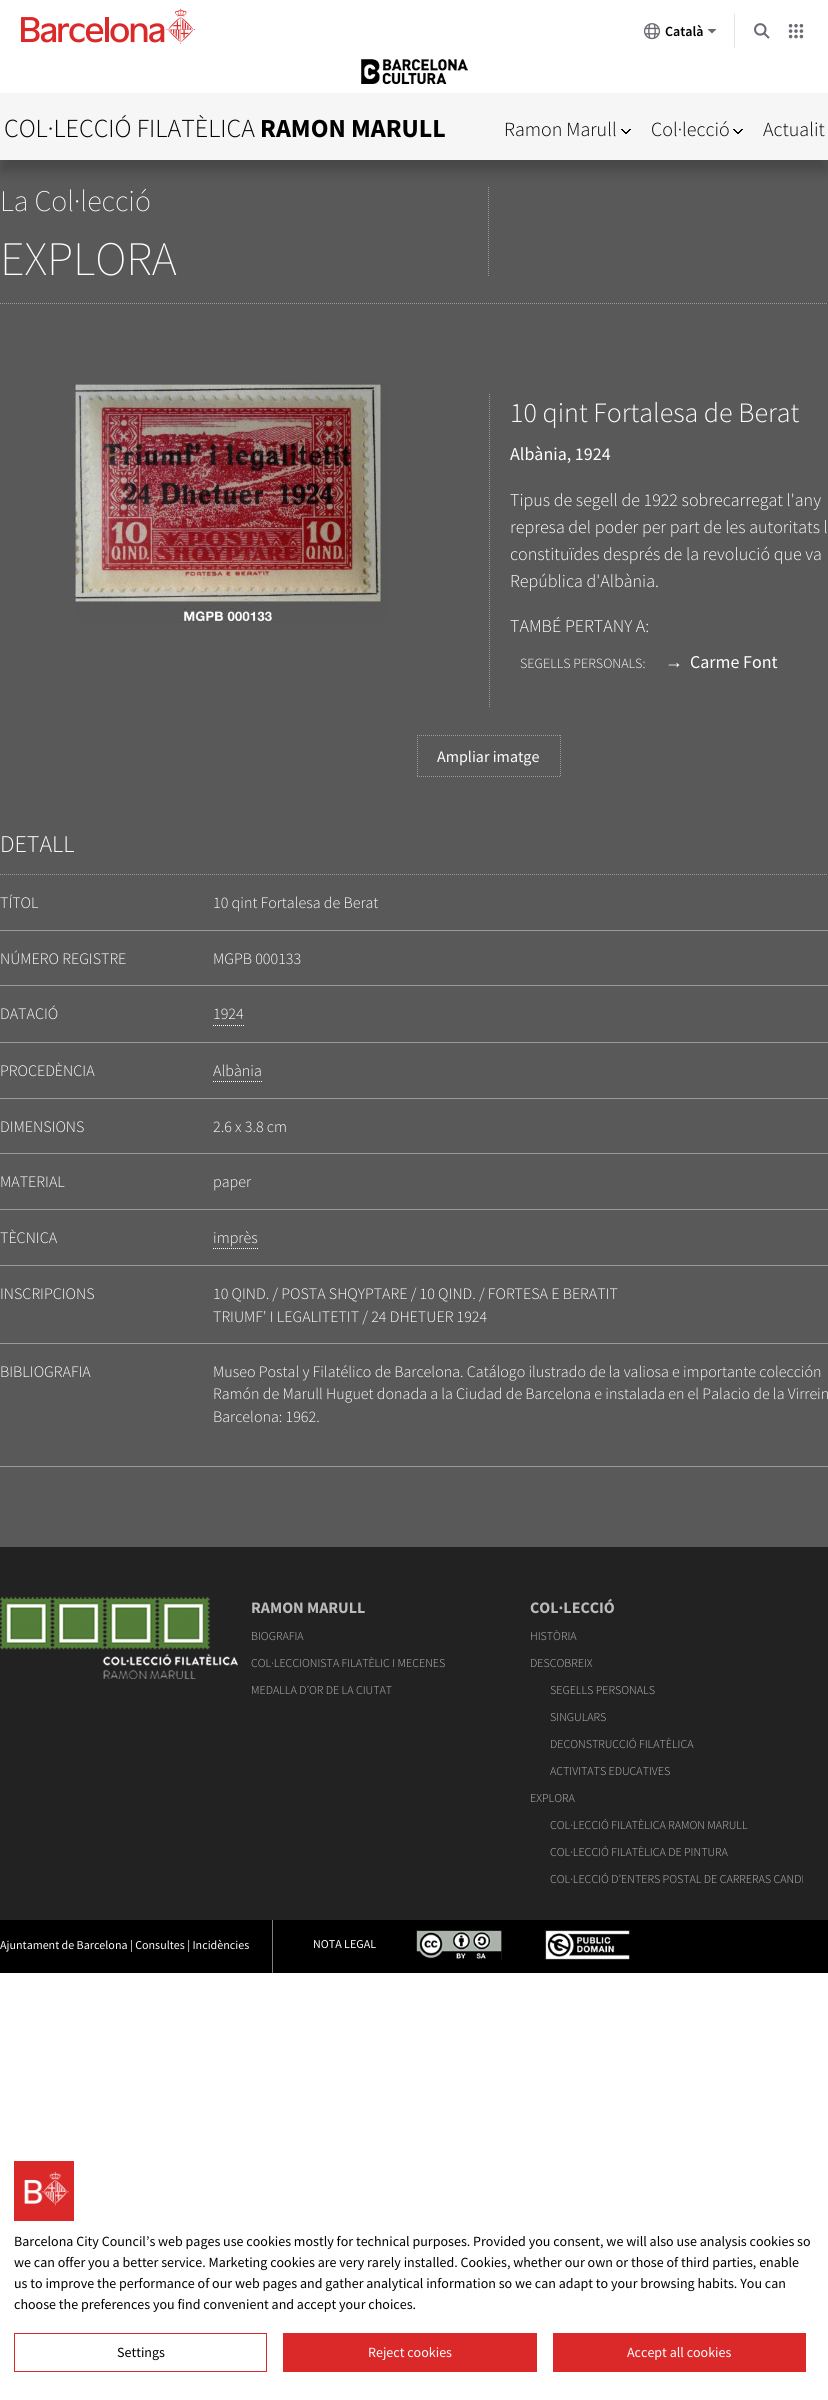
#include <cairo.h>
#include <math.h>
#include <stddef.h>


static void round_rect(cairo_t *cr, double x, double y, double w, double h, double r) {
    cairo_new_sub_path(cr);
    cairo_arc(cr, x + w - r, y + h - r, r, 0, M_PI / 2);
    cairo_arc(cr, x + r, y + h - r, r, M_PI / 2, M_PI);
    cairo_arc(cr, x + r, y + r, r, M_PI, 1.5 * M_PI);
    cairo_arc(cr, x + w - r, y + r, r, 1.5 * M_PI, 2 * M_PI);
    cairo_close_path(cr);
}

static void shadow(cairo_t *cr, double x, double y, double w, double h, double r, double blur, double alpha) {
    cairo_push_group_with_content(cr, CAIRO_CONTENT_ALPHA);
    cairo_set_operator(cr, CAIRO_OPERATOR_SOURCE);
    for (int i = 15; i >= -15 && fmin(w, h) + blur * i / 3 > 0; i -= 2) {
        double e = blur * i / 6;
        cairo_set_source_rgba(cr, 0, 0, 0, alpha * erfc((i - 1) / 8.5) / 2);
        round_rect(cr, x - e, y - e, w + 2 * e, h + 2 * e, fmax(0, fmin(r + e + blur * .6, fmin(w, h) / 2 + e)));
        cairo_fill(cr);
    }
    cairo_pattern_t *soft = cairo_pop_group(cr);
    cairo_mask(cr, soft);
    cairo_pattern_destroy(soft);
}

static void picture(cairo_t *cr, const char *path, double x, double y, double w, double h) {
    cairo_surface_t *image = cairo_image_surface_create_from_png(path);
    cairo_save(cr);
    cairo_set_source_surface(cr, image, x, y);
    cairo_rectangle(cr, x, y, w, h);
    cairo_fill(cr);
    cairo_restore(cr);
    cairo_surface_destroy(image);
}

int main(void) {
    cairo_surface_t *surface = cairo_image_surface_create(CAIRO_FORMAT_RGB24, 828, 2400);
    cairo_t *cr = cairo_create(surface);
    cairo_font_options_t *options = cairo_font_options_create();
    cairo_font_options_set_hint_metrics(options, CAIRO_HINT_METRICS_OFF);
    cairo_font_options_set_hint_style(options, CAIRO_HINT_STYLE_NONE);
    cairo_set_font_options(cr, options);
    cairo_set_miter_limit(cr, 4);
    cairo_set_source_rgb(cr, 1, 1, 1);
    cairo_paint(cr);
    picture(cr, "img1.png", 21, 8, 174, 36);
    cairo_set_source_rgb(cr, 0.898, 0.898, 0.898);
    cairo_rectangle(cr, 734, 14, 1, 34);
    cairo_fill(cr);
    picture(cr, "img2.png", 644, 23, 16, 17);
    cairo_select_font_face(cr, "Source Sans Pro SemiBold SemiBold", CAIRO_FONT_SLANT_NORMAL, CAIRO_FONT_WEIGHT_NORMAL);
    cairo_set_font_size(cr, 14);
    cairo_set_source_rgb(cr, 0, 0, 0);
    cairo_move_to(cr, 665, 36);
    cairo_show_text(cr, "Català");
    cairo_set_source_rgb(cr, 0.412, 0.412, 0.451);
    cairo_new_path(cr);
    cairo_move_to(cr, 707.5, 29);
    cairo_line_to(cr, 712, 33.5);
    cairo_line_to(cr, 716.5, 29);
    cairo_close_path(cr);
    cairo_fill(cr);
    picture(cr, "img3.png", 754, 23, 16, 16);
    picture(cr, "img4.png", 788, 23, 16, 16);
    picture(cr, "img5.png", 361, 59, 107, 25);
    cairo_set_source_rgb(cr, 0.349, 0.349, 0.349);
    cairo_rectangle(cr, 0, 160, 828, 1387);
    cairo_fill(cr);
    cairo_new_path(cr);
    cairo_move_to(cr, 488.5, 187);
    cairo_line_to(cr, 488.5, 277);
    cairo_set_source_rgb(cr, 0.6, 0.6, 0.6);
    cairo_set_line_width(cr, 1);
    cairo_set_dash(cr, (double[]){1, 1}, 2, 0);
    cairo_stroke(cr);
    cairo_set_source_rgb(cr, 0, 0, 0);
    shadow(cr, 0, 105, 828, 67, 0, 6, 0.2);
    cairo_set_source_rgb(cr, 0.961, 0.961, 0.961);
    cairo_rectangle(cr, 0, 93, 828, 67);
    cairo_fill(cr);
    cairo_select_font_face(cr, "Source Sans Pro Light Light", CAIRO_FONT_SLANT_NORMAL, CAIRO_FONT_WEIGHT_NORMAL);
    cairo_set_font_size(cr, 26);
    cairo_set_source_rgb(cr, 0, 0, 0);
    cairo_move_to(cr, 4, 137);
    cairo_show_text(cr, "COL·LECCIÓ FILATÈLICA");
    cairo_select_font_face(cr, "Source Sans Pro", CAIRO_FONT_SLANT_NORMAL, CAIRO_FONT_WEIGHT_BOLD);
    cairo_move_to(cr, 260, 137);
    cairo_show_text(cr, "RAMON MARULL");
    picture(cr, "img6.png", 621, 129, 10, 5);
    cairo_select_font_face(cr, "Source Sans Pro Light Light", CAIRO_FONT_SLANT_NORMAL, CAIRO_FONT_WEIGHT_NORMAL);
    cairo_set_font_size(cr, 20);
    cairo_move_to(cr, 504, 136);
    cairo_show_text(cr, "Ramon Marull");
    picture(cr, "img6.png", 733, 129, 10, 5);
    cairo_move_to(cr, 651, 136);
    cairo_show_text(cr, "Col·lecció");
    cairo_move_to(cr, 763, 136);
    cairo_show_text(cr, "Actualit");
    cairo_select_font_face(cr, "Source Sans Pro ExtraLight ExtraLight", CAIRO_FONT_SLANT_NORMAL, CAIRO_FONT_WEIGHT_NORMAL);
    cairo_set_font_size(cr, 30);
    cairo_set_source_rgb(cr, 1, 1, 1);
    cairo_move_to(cr, 0, 211);
    cairo_show_text(cr, "La Col·lecció");
    cairo_set_font_size(cr, 48);
    cairo_move_to(cr, 0, 275);
    cairo_show_text(cr, "EXPLORA");
    cairo_new_path(cr);
    cairo_move_to(cr, 0, 303.5);
    cairo_line_to(cr, 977, 303.5);
    cairo_set_source_rgb(cr, 0.6, 0.6, 0.6);
    cairo_stroke(cr);
    picture(cr, "img7.png", 74, 383, 312, 240);
    cairo_new_path(cr);
    cairo_move_to(cr, 489.5, 394);
    cairo_line_to(cr, 489.5, 707);
    cairo_stroke(cr);
    cairo_select_font_face(cr, "Source Sans Pro Light Light", CAIRO_FONT_SLANT_NORMAL, CAIRO_FONT_WEIGHT_NORMAL);
    cairo_set_font_size(cr, 28);
    cairo_set_source_rgb(cr, 1, 1, 1);
    cairo_move_to(cr, 510, 422);
    cairo_show_text(cr, "10 qint Fortalesa de Berat");
    cairo_select_font_face(cr, "Source Sans Pro", CAIRO_FONT_SLANT_NORMAL, CAIRO_FONT_WEIGHT_NORMAL);
    cairo_set_font_size(cr, 18);
    cairo_move_to(cr, 510, 460);
    cairo_show_text(cr, "Albània, 1924");
    cairo_select_font_face(cr, "Source Sans Pro Light Light", CAIRO_FONT_SLANT_NORMAL, CAIRO_FONT_WEIGHT_NORMAL);
    cairo_move_to(cr, 510, 506);
    cairo_show_text(cr, "Tipus de segell de 1922 sobrecarregat l'any");
    cairo_move_to(cr, 510, 533);
    cairo_show_text(cr, "represa del poder per part de les autoritats l");
    cairo_move_to(cr, 510, 560);
    cairo_show_text(cr, "constituïdes després de la revolució que va");
    cairo_move_to(cr, 510, 587);
    cairo_show_text(cr, "República d'Albània.");
    cairo_move_to(cr, 510, 632);
    cairo_show_text(cr, "TAMBÉ PERTANY A:");
    cairo_set_font_size(cr, 14);
    cairo_move_to(cr, 520, 668);
    cairo_show_text(cr, "SEGELLS PERSONALS:");
    cairo_select_font_face(cr, "Liberation Sans", CAIRO_FONT_SLANT_NORMAL, CAIRO_FONT_WEIGHT_NORMAL);
    cairo_set_font_size(cr, 18);
    cairo_move_to(cr, 665, 668);
    cairo_show_text(cr, "→");
    cairo_select_font_face(cr, "Source Sans Pro", CAIRO_FONT_SLANT_NORMAL, CAIRO_FONT_WEIGHT_NORMAL);
    cairo_move_to(cr, 690, 668);
    cairo_show_text(cr, "Carme Font");
    cairo_new_path(cr);
    cairo_move_to(cr, 417, 735.5);
    cairo_line_to(cr, 561, 735.5);
    cairo_set_source_rgb(cr, 0.6, 0.6, 0.6);
    cairo_stroke(cr);
    cairo_new_path(cr);
    cairo_move_to(cr, 560.5, 735);
    cairo_line_to(cr, 560.5, 777);
    cairo_stroke(cr);
    cairo_new_path(cr);
    cairo_move_to(cr, 417, 776.5);
    cairo_line_to(cr, 561, 776.5);
    cairo_stroke(cr);
    cairo_new_path(cr);
    cairo_move_to(cr, 417.5, 735);
    cairo_line_to(cr, 417.5, 777);
    cairo_stroke(cr);
    cairo_set_font_size(cr, 16);
    cairo_set_source_rgb(cr, 1, 1, 1);
    cairo_move_to(cr, 437, 762);
    cairo_show_text(cr, "Ampliar imatge");
    cairo_new_path(cr);
    cairo_move_to(cr, 0, 874.5);
    cairo_line_to(cr, 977, 874.5);
    cairo_set_source_rgb(cr, 0.6, 0.6, 0.6);
    cairo_stroke(cr);
    cairo_select_font_face(cr, "Source Sans Pro Light Light", CAIRO_FONT_SLANT_NORMAL, CAIRO_FONT_WEIGHT_NORMAL);
    cairo_set_font_size(cr, 24);
    cairo_set_source_rgb(cr, 1, 1, 1);
    cairo_move_to(cr, 0, 852);
    cairo_show_text(cr, "DETALL");
    cairo_set_font_size(cr, 16);
    cairo_move_to(cr, 0, 908);
    cairo_show_text(cr, "TÍTOL");
    cairo_set_source_rgb(cr, 0.6, 0.6, 0.6);
    cairo_rectangle(cr, 0, 930, 828, 1);
    cairo_fill(cr);
    cairo_set_source_rgb(cr, 1, 1, 1);
    cairo_move_to(cr, 213, 908);
    cairo_show_text(cr, "10 qint Fortalesa de Berat");
    cairo_move_to(cr, 0, 964);
    cairo_show_text(cr, "NÚMERO REGISTRE");
    cairo_set_source_rgb(cr, 0.6, 0.6, 0.6);
    cairo_rectangle(cr, 0, 985, 828, 1);
    cairo_fill(cr);
    cairo_set_source_rgb(cr, 1, 1, 1);
    cairo_move_to(cr, 213, 964);
    cairo_show_text(cr, "MGPB 000133");
    cairo_move_to(cr, 0, 1019);
    cairo_show_text(cr, "DATACIÓ");
    cairo_set_source_rgb(cr, 0.6, 0.6, 0.6);
    cairo_rectangle(cr, 0, 1042, 828, 1);
    cairo_fill(cr);
    cairo_new_path(cr);
    cairo_move_to(cr, 213, 1025.5);
    cairo_line_to(cr, 244, 1025.5);
    cairo_set_source_rgb(cr, 1, 1, 1);
    cairo_stroke(cr);
    cairo_move_to(cr, 213, 1019);
    cairo_show_text(cr, "1924");
    cairo_move_to(cr, 0, 1076);
    cairo_show_text(cr, "PROCEDÈNCIA");
    cairo_set_source_rgb(cr, 0.6, 0.6, 0.6);
    cairo_rectangle(cr, 0, 1098, 828, 1);
    cairo_fill(cr);
    cairo_new_path(cr);
    cairo_move_to(cr, 213, 1081.5);
    cairo_line_to(cr, 262, 1081.5);
    cairo_set_source_rgb(cr, 1, 1, 1);
    cairo_stroke(cr);
    cairo_move_to(cr, 213, 1076);
    cairo_show_text(cr, "Albània");
    cairo_move_to(cr, 0, 1132);
    cairo_show_text(cr, "DIMENSIONS");
    cairo_set_source_rgb(cr, 0.6, 0.6, 0.6);
    cairo_rectangle(cr, 0, 1153, 828, 1);
    cairo_fill(cr);
    cairo_set_source_rgb(cr, 1, 1, 1);
    cairo_move_to(cr, 213, 1132);
    cairo_show_text(cr, "2.6 x 3.8 cm");
    cairo_move_to(cr, 0, 1187);
    cairo_show_text(cr, "MATERIAL");
    cairo_set_source_rgb(cr, 0.6, 0.6, 0.6);
    cairo_rectangle(cr, 0, 1209, 828, 1);
    cairo_fill(cr);
    cairo_set_source_rgb(cr, 1, 1, 1);
    cairo_move_to(cr, 213, 1187);
    cairo_show_text(cr, "paper");
    cairo_move_to(cr, 0, 1243);
    cairo_show_text(cr, "TÈCNICA");
    cairo_set_source_rgb(cr, 0.6, 0.6, 0.6);
    cairo_rectangle(cr, 0, 1265, 828, 1);
    cairo_fill(cr);
    cairo_new_path(cr);
    cairo_move_to(cr, 213, 1248.5);
    cairo_line_to(cr, 258, 1248.5);
    cairo_set_source_rgb(cr, 1, 1, 1);
    cairo_stroke(cr);
    cairo_move_to(cr, 213, 1243);
    cairo_show_text(cr, "imprès");
    cairo_move_to(cr, 0, 1299);
    cairo_show_text(cr, "INSCRIPCIONS");
    cairo_set_source_rgb(cr, 0.6, 0.6, 0.6);
    cairo_rectangle(cr, 0, 1343, 828, 1);
    cairo_fill(cr);
    cairo_set_source_rgb(cr, 1, 1, 1);
    cairo_move_to(cr, 213, 1299);
    cairo_show_text(cr, "10 QIND. / POSTA SHQYPTARE / 10 QIND. / FORTESA E BERATIT");
    cairo_move_to(cr, 213, 1322);
    cairo_show_text(cr, "TRIUMF' I LEGALITETIT / 24 DHETUER 1924");
    cairo_move_to(cr, 0, 1377);
    cairo_show_text(cr, "BIBLIOGRAFIA");
    cairo_set_source_rgb(cr, 0.6, 0.6, 0.6);
    cairo_rectangle(cr, 0, 1466, 828, 1);
    cairo_fill(cr);
    cairo_set_source_rgb(cr, 1, 1, 1);
    cairo_move_to(cr, 213, 1377);
    cairo_show_text(cr, "Museo Postal y Filatélico de Barcelona. Catálogo ilustrado de la valiosa e importante colección");
    cairo_move_to(cr, 213, 1399);
    cairo_show_text(cr, "Ramón de Marull Huguet donada a la Ciudad de Barcelona e instalada en el Palacio de la Virrein");
    cairo_move_to(cr, 213, 1422);
    cairo_show_text(cr, "Barcelona: 1962.");
    cairo_set_source_rgb(cr, 0.133, 0.133, 0.133);
    cairo_rectangle(cr, 0, 1547, 828, 373);
    cairo_fill(cr);
    picture(cr, "img8.png", 0, 1597, 238, 82);
    cairo_select_font_face(cr, "Source Sans Pro", CAIRO_FONT_SLANT_NORMAL, CAIRO_FONT_WEIGHT_BOLD);
    cairo_set_source_rgb(cr, 0.733, 0.733, 0.733);
    cairo_move_to(cr, 251, 1613);
    cairo_show_text(cr, "RAMON MARULL");
    cairo_select_font_face(cr, "Source Sans Pro Light Light", CAIRO_FONT_SLANT_NORMAL, CAIRO_FONT_WEIGHT_NORMAL);
    cairo_set_font_size(cr, 12);
    cairo_move_to(cr, 251, 1640);
    cairo_show_text(cr, "BIOGRAFIA");
    cairo_move_to(cr, 251, 1667);
    cairo_show_text(cr, "COL·LECCIONISTA FILATÈLIC I MECENES");
    cairo_move_to(cr, 251, 1694);
    cairo_show_text(cr, "MEDALLA D’OR DE LA CIUTAT");
    cairo_select_font_face(cr, "Source Sans Pro", CAIRO_FONT_SLANT_NORMAL, CAIRO_FONT_WEIGHT_BOLD);
    cairo_set_font_size(cr, 16);
    cairo_move_to(cr, 530, 1613);
    cairo_show_text(cr, "COL·LECCIÓ");
    cairo_select_font_face(cr, "Source Sans Pro Light Light", CAIRO_FONT_SLANT_NORMAL, CAIRO_FONT_WEIGHT_NORMAL);
    cairo_set_font_size(cr, 12);
    cairo_move_to(cr, 530, 1640);
    cairo_show_text(cr, "HISTÒRIA");
    cairo_move_to(cr, 530, 1667);
    cairo_show_text(cr, "DESCOBREIX");
    cairo_move_to(cr, 550, 1694);
    cairo_show_text(cr, "SEGELLS PERSONALS");
    cairo_move_to(cr, 550, 1721);
    cairo_show_text(cr, "SINGULARS");
    cairo_move_to(cr, 550, 1748);
    cairo_show_text(cr, "DECONSTRUCCIÓ FILATÈLICA");
    cairo_move_to(cr, 550, 1775);
    cairo_show_text(cr, "ACTIVITATS EDUCATIVES");
    cairo_move_to(cr, 530, 1802);
    cairo_show_text(cr, "EXPLORA");
    cairo_move_to(cr, 550, 1829);
    cairo_show_text(cr, "COL·LECCIÓ FILATÈLICA RAMON MARULL");
    cairo_move_to(cr, 550, 1856);
    cairo_show_text(cr, "COL·LECCIÓ FILATÈLICA DE PINTURA");
    cairo_move_to(cr, 550, 1883);
    cairo_show_text(cr, "COL·LECCIÓ D’ENTERS POSTAL DE CARRERAS CANDI");
    cairo_set_source_rgb(cr, 0, 0, 0);
    cairo_rectangle(cr, 0, 1920, 828, 53);
    cairo_fill(cr);
    cairo_select_font_face(cr, "Source Sans Pro", CAIRO_FONT_SLANT_NORMAL, CAIRO_FONT_WEIGHT_NORMAL);
    cairo_set_source_rgb(cr, 1, 1, 1);
    cairo_move_to(cr, 0, 1949);
    cairo_show_text(cr, "Ajuntament de Barcelona | Consultes | Incidències");
    cairo_set_source_rgb(cr, 0.498, 0.498, 0.498);
    cairo_rectangle(cr, 272, 1920, 1, 53);
    cairo_fill(cr);
    cairo_set_source_rgb(cr, 1, 1, 1);
    cairo_move_to(cr, 313, 1948);
    cairo_show_text(cr, "NOTA LEGAL");
    picture(cr, "img9.png", 416, 1930, 86, 30);
    picture(cr, "img10.png", 545, 1930, 85, 30);
    picture(cr, "img11.png", 14, 2161, 60, 60);
    cairo_set_font_size(cr, 14);
    cairo_set_source_rgb(cr, 0, 0, 0);
    cairo_move_to(cr, 14, 2246);
    cairo_show_text(cr, "Barcelona City Council’s web pages use cookies mostly for technical purposes. Provided you consent, we will also use analysis cookies so");
    cairo_move_to(cr, 14, 2267);
    cairo_show_text(cr, "we can offer you a better service. Marketing cookies are very rarely installed. Cookies, whether our own or those of third parties, enable");
    cairo_move_to(cr, 14, 2288);
    cairo_show_text(cr, "us to improve the performance of our web pages and gather analytical information so we can adapt to your browsing habits. You can");
    cairo_move_to(cr, 14, 2309);
    cairo_show_text(cr, "choose the preferences you find convenient and accept your choices.");
    cairo_rectangle(cr, 14.5, 2333.5, 252, 38);
    cairo_set_source_rgb(cr, 0.859, 0.157, 0.157);
    cairo_set_dash(cr, NULL, 0, 0);
    cairo_stroke(cr);
    cairo_set_source_rgb(cr, 0, 0, 0);
    cairo_move_to(cr, 117, 2357);
    cairo_show_text(cr, "Settings");
    cairo_set_source_rgb(cr, 0.859, 0.157, 0.157);
    cairo_rectangle(cr, 283, 2333, 254, 39);
    cairo_fill(cr);
    cairo_set_source_rgb(cr, 1, 1, 1);
    cairo_move_to(cr, 368, 2357);
    cairo_show_text(cr, "Reject cookies");
    cairo_set_source_rgb(cr, 0.859, 0.157, 0.157);
    cairo_rectangle(cr, 553, 2333, 253, 39);
    cairo_fill(cr);
    cairo_set_source_rgb(cr, 1, 1, 1);
    cairo_move_to(cr, 627, 2357);
    cairo_show_text(cr, "Accept all cookies");
    cairo_surface_write_to_png(surface, "page.png");
    cairo_font_options_destroy(options);
    cairo_destroy(cr);
    cairo_surface_destroy(surface);
    return 0;
}
